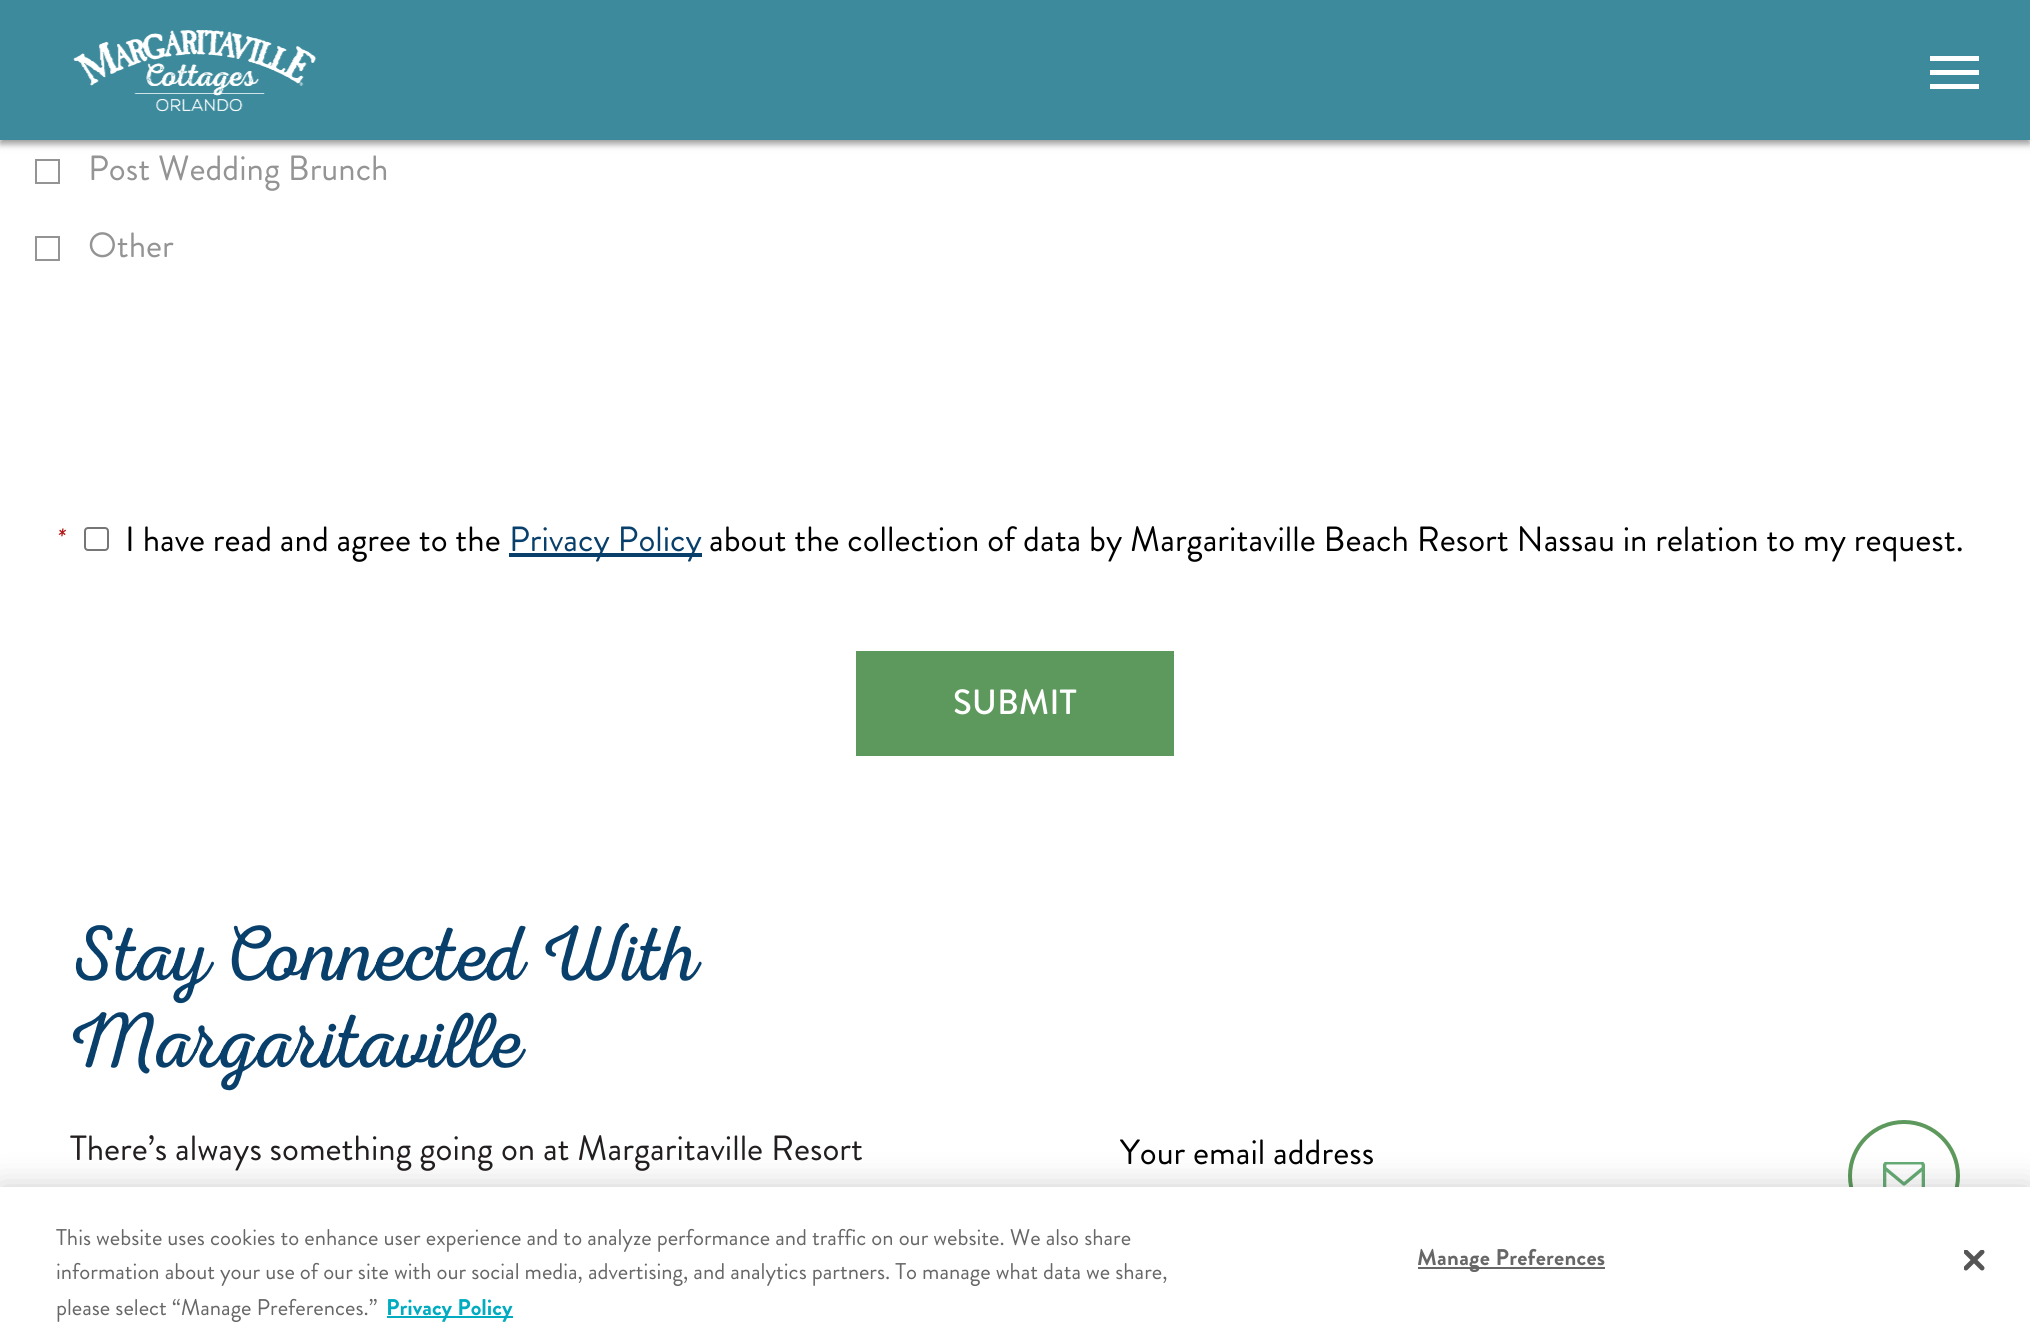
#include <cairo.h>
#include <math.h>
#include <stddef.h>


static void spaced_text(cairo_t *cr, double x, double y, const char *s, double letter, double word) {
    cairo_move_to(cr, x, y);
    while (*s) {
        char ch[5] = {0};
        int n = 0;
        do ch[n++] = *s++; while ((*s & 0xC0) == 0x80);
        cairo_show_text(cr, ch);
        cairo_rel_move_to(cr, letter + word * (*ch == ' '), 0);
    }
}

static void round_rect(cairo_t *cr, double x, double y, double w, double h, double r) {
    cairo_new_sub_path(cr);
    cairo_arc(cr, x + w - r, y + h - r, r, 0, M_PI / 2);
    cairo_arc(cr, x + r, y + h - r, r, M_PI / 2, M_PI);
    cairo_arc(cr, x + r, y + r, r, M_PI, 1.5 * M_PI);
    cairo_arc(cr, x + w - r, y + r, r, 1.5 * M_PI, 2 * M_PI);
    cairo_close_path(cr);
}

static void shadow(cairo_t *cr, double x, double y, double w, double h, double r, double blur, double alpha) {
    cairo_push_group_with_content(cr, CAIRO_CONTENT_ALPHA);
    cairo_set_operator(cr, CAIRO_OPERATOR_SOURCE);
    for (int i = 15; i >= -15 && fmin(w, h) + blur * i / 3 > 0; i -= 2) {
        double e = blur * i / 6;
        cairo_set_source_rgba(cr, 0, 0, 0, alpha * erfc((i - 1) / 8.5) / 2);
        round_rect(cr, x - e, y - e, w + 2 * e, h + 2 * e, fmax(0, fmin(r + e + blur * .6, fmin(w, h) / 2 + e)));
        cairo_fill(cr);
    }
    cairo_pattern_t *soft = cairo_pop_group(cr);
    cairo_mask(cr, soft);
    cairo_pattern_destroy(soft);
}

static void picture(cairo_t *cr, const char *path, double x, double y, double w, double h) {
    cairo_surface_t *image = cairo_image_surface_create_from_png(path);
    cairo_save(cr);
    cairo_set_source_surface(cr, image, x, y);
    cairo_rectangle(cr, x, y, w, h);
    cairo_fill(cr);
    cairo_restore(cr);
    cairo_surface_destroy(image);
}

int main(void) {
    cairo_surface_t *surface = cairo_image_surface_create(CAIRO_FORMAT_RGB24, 2030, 1343);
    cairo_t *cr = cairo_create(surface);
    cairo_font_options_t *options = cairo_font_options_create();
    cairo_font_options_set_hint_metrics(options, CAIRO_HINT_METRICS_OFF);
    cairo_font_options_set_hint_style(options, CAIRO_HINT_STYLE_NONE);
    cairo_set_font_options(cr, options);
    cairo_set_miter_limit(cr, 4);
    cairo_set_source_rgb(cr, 1, 1, 1);
    cairo_paint(cr);
    cairo_set_source_rgb(cr, 0, 0, 0);
    shadow(cr, 0, 4, 2030, 140, 0, 3.5, 0.4);
    cairo_set_source_rgb(cr, 0.239, 0.541, 0.612);
    cairo_rectangle(cr, 0, 0, 2030, 140);
    cairo_fill(cr);
    picture(cr, "img1.png", 73, 30, 244, 82);
    cairo_set_source_rgb(cr, 1, 1, 1);
    cairo_rectangle(cr, 1930, 56, 49, 5);
    cairo_fill(cr);
    cairo_rectangle(cr, 1930, 70, 49, 5);
    cairo_fill(cr);
    cairo_rectangle(cr, 1930, 84, 49, 5);
    cairo_fill(cr);
    cairo_rectangle(cr, 36, 160, 23, 23);
    cairo_set_source_rgb(cr, 0.584, 0.58, 0.58);
    cairo_stroke(cr);
    cairo_select_font_face(cr, "Brandon Grotesque", CAIRO_FONT_SLANT_NORMAL, CAIRO_FONT_WEIGHT_NORMAL);
    cairo_set_font_size(cr, 35);
    cairo_move_to(cr, 88, 180);
    cairo_show_text(cr, "Post Wedding Brunch");
    cairo_rectangle(cr, 36, 237, 23, 23);
    cairo_stroke(cr);
    cairo_move_to(cr, 88, 257);
    cairo_show_text(cr, "Other");
    cairo_select_font_face(cr, "Brandon Grotesque", CAIRO_FONT_SLANT_ITALIC, CAIRO_FONT_WEIGHT_NORMAL);
    cairo_set_font_size(cr, 28);
    cairo_set_source_rgb(cr, 0.702, 0.098, 0.098);
    cairo_move_to(cr, 57, 548);
    cairo_show_text(cr, "*");
    round_rect(cr, 85, 528, 23, 22, 3);
    cairo_set_source_rgb(cr, 0.463, 0.463, 0.463);
    cairo_stroke(cr);
    cairo_select_font_face(cr, "Brandon Grotesque", CAIRO_FONT_SLANT_NORMAL, CAIRO_FONT_WEIGHT_NORMAL);
    cairo_set_font_size(cr, 35);
    cairo_set_source_rgb(cr, 0, 0, 0);
    cairo_move_to(cr, 125, 551);
    cairo_show_text(cr, "I have read and agree to the");
    cairo_set_source_rgb(cr, 0.039, 0.251, 0.42);
    cairo_rectangle(cr, 509, 553, 193, 4);
    cairo_fill(cr);
    cairo_move_to(cr, 509, 551);
    cairo_show_text(cr, "Privacy Policy");
    cairo_set_source_rgb(cr, 0, 0, 0);
    cairo_move_to(cr, 709, 551);
    cairo_show_text(cr, "about the collection of data by Margaritaville Beach Resort Nassau in relation to my request.");
    cairo_set_source_rgb(cr, 0.365, 0.6, 0.365);
    cairo_rectangle(cr, 856, 651, 318, 105);
    cairo_fill(cr);
    cairo_select_font_face(cr, "Brandon Grotesque Medium", CAIRO_FONT_SLANT_NORMAL, CAIRO_FONT_WEIGHT_NORMAL);
    cairo_set_source_rgb(cr, 1, 1, 1);
    cairo_move_to(cr, 953, 714);
    cairo_show_text(cr, "SUBMIT");
    cairo_select_font_face(cr, "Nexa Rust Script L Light", CAIRO_FONT_SLANT_NORMAL, CAIRO_FONT_WEIGHT_NORMAL);
    cairo_set_font_size(cr, 78.75);
    cairo_set_source_rgb(cr, 0.039, 0.251, 0.42);
    cairo_move_to(cr, 70, 980);
    cairo_show_text(cr, "Stay Connected With");
    cairo_move_to(cr, 70, 1067);
    cairo_show_text(cr, "Margaritaville");
    cairo_select_font_face(cr, "Brandon Grotesque", CAIRO_FONT_SLANT_NORMAL, CAIRO_FONT_WEIGHT_NORMAL);
    cairo_set_font_size(cr, 35);
    cairo_set_source_rgb(cr, 0.137, 0.122, 0.125);
    cairo_move_to(cr, 70, 1160);
    cairo_show_text(cr, "There’s always something going on at Margaritaville Resort");
    cairo_set_source_rgb(cr, 0, 0, 0);
    cairo_move_to(cr, 1120, 1164);
    cairo_show_text(cr, "Your email address");
    cairo_new_path(cr);
    cairo_arc(cr, 1904, 1176, 54, 0, 2 * M_PI);
    cairo_set_source_rgb(cr, 0.365, 0.6, 0.365);
    cairo_set_line_width(cr, 4);
    cairo_stroke(cr);
    picture(cr, "img2.png", 1883, 1162, 42, 25);
    cairo_set_source_rgb(cr, 0, 0, 0);
    shadow(cr, 0, 1187, 2030, 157, 0, 16, 0.2);
    cairo_set_source_rgb(cr, 1, 1, 1);
    cairo_rectangle(cr, 0, 1187, 2030, 156);
    cairo_fill(cr);
    cairo_set_font_size(cr, 22.75);
    cairo_set_source_rgb(cr, 0.404, 0.404, 0.404);
    cairo_move_to(cr, 56, 1245);
    cairo_show_text(cr, "This website uses cookies to enhance user experience and to analyze performance and traffic on our website. We also share");
    cairo_move_to(cr, 56, 1279);
    cairo_show_text(cr, "information about your use of our site with our social media, advertising, and analytics partners. To manage what data we share,");
    cairo_move_to(cr, 56, 1315);
    cairo_show_text(cr, "please select “Manage Preferences.”");
    cairo_set_source_rgb(cr, 0.004, 0.671, 0.753);
    cairo_rectangle(cr, 387, 1316, 126, 2);
    cairo_fill(cr);
    cairo_select_font_face(cr, "Brandon Grotesque", CAIRO_FONT_SLANT_NORMAL, CAIRO_FONT_WEIGHT_BOLD);
    cairo_move_to(cr, 386, 1315);
    cairo_show_text(cr, "Privacy Policy");
    cairo_set_source_rgb(cr, 0.404, 0.404, 0.404);
    cairo_rectangle(cr, 1418, 1267, 187, 2);
    cairo_fill(cr);
    spaced_text(cr, 1417, 1265, "Manage Preferences", 0.25, 0);
    picture(cr, "img3.png", 1964, 1250, 21, 21);
    cairo_surface_write_to_png(surface, "page.png");
    cairo_font_options_destroy(options);
    cairo_destroy(cr);
    cairo_surface_destroy(surface);
    return 0;
}
